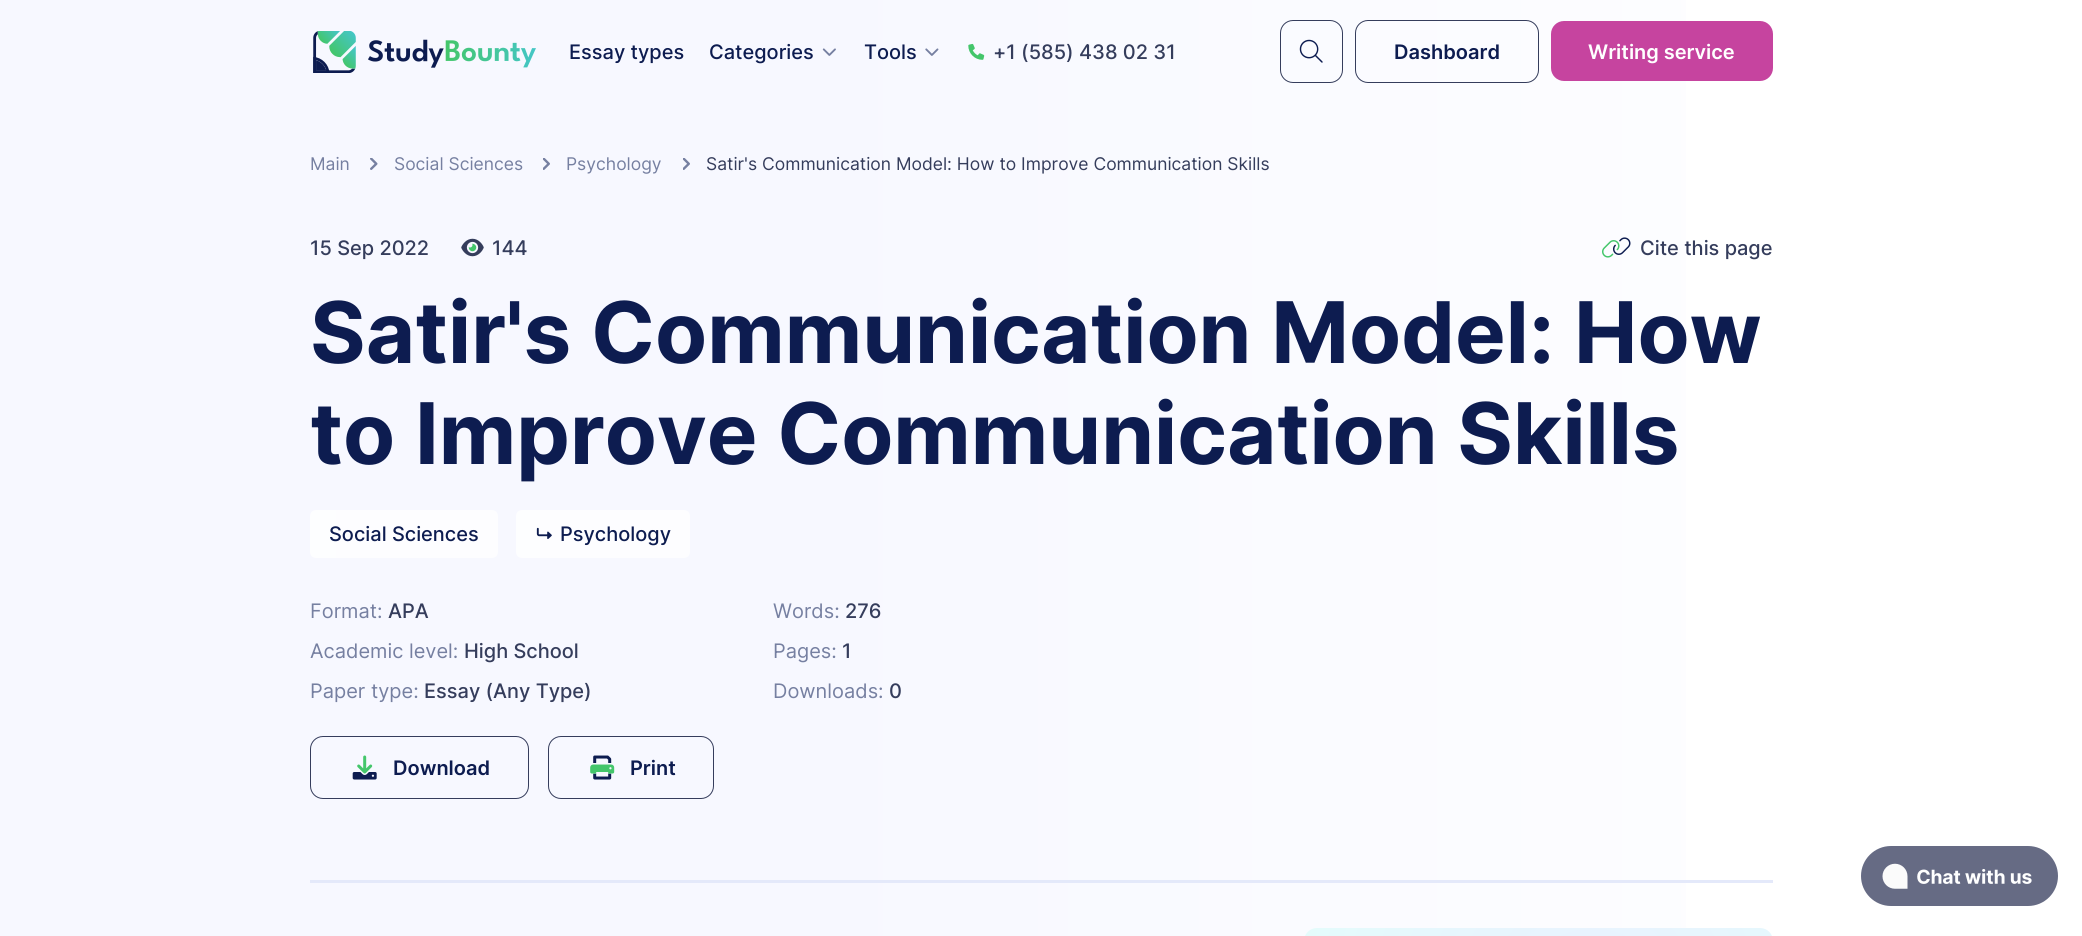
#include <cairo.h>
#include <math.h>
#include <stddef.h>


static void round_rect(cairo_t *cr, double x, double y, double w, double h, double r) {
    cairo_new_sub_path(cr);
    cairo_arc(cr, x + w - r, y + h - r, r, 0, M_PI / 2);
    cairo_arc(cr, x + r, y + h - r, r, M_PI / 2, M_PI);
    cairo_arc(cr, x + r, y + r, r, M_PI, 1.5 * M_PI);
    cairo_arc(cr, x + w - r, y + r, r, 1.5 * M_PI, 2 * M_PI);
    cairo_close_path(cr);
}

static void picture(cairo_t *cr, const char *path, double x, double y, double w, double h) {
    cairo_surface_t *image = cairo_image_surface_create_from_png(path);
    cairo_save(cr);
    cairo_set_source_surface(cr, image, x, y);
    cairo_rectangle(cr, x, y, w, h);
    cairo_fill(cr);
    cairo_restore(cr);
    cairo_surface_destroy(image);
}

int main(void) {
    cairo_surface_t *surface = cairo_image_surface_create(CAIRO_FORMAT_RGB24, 2082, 936);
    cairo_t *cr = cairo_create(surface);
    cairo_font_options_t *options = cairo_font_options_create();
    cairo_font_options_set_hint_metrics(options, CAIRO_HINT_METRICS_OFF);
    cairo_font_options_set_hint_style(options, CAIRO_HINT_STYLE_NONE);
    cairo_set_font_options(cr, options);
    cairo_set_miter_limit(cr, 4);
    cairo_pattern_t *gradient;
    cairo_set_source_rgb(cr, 1, 1, 1);
    cairo_paint(cr);
    gradient = cairo_pattern_create_linear(0, 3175, 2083, 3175);
    cairo_pattern_add_color_stop_rgba(gradient, 0.39, 0.969, 0.973, 1, 1);
    cairo_pattern_add_color_stop_rgba(gradient, 1, 1, 1, 1, 1);
    cairo_set_source(cr, gradient);
    cairo_pattern_destroy(gradient);
    cairo_rectangle(cr, 0, 0, 1686, 936);
    cairo_fill(cr);
    picture(cr, "img1.png", 313, 31, 223, 42);
    cairo_select_font_face(cr, "Inter Medium", CAIRO_FONT_SLANT_NORMAL, CAIRO_FONT_WEIGHT_NORMAL);
    cairo_set_font_size(cr, 20);
    cairo_set_source_rgb(cr, 0.051, 0.11, 0.314);
    cairo_move_to(cr, 569, 59);
    cairo_show_text(cr, "Essay types");
    cairo_move_to(cr, 709, 59);
    cairo_show_text(cr, "Categories");
    picture(cr, "img2.png", 822, 48, 14, 8);
    cairo_move_to(cr, 864, 59);
    cairo_show_text(cr, "Tools");
    picture(cr, "img3.png", 925, 48, 14, 8);
    picture(cr, "img4.png", 968, 43, 17, 17);
    cairo_set_source_rgb(cr, 0.208, 0.239, 0.361);
    cairo_move_to(cr, 993, 59);
    cairo_show_text(cr, "+1 (585) 438 02 31");
    round_rect(cr, 1280.5, 20.5, 62, 62, 12.5);
    cairo_set_line_width(cr, 1);
    cairo_stroke(cr);
    picture(cr, "img5.png", 1299, 39, 24, 24);
    round_rect(cr, 1355.5, 20.5, 183, 62, 12.5);
    cairo_stroke(cr);
    cairo_select_font_face(cr, "Inter SemiBold", CAIRO_FONT_SLANT_NORMAL, CAIRO_FONT_WEIGHT_NORMAL);
    cairo_set_source_rgb(cr, 0.051, 0.11, 0.314);
    cairo_move_to(cr, 1394, 59);
    cairo_show_text(cr, "Dashboard");
    cairo_set_source_rgb(cr, 0.776, 0.267, 0.624);
    round_rect(cr, 1551, 21, 222, 60, 13);
    cairo_fill(cr);
    cairo_set_source_rgb(cr, 1, 1, 1);
    cairo_move_to(cr, 1588, 59);
    cairo_show_text(cr, "Writing service");
    cairo_set_source_rgb(cr, 0.894, 0.914, 0.98);
    cairo_rectangle(cr, 310, 880, 1463, 3);
    cairo_fill(cr);
    cairo_select_font_face(cr, "Inter", CAIRO_FONT_SLANT_NORMAL, CAIRO_FONT_WEIGHT_NORMAL);
    cairo_set_font_size(cr, 17.5);
    cairo_set_source_rgb(cr, 0.463, 0.502, 0.631);
    cairo_move_to(cr, 310, 170);
    cairo_show_text(cr, "Main");
    picture(cr, "img6.png", 370, 158, 8, 12);
    cairo_move_to(cr, 394, 170);
    cairo_show_text(cr, "Social Sciences");
    picture(cr, "img7.png", 543, 158, 7, 12);
    cairo_move_to(cr, 566, 170);
    cairo_show_text(cr, "Psychology");
    picture(cr, "img7.png", 683, 158, 7, 12);
    cairo_set_source_rgb(cr, 0.208, 0.239, 0.361);
    cairo_move_to(cr, 706, 170);
    cairo_show_text(cr, "Satir's Communication Model: How to Improve Communication Skills");
    cairo_select_font_face(cr, "Inter Medium", CAIRO_FONT_SLANT_NORMAL, CAIRO_FONT_WEIGHT_NORMAL);
    cairo_set_font_size(cr, 20);
    cairo_move_to(cr, 310, 255);
    cairo_show_text(cr, "15 Sep 2022");
    picture(cr, "img8.png", 461, 238, 23, 19);
    cairo_move_to(cr, 492, 255);
    cairo_show_text(cr, "144");
    picture(cr, "img9.png", 1602, 237, 29, 21);
    cairo_move_to(cr, 1640, 255);
    cairo_show_text(cr, "Cite this page");
    cairo_select_font_face(cr, "Inter", CAIRO_FONT_SLANT_NORMAL, CAIRO_FONT_WEIGHT_BOLD);
    cairo_set_font_size(cr, 85);
    cairo_set_source_rgb(cr, 0.051, 0.11, 0.314);
    cairo_move_to(cr, 310, 363);
    cairo_show_text(cr, "Satir's Communication Model: How");
    cairo_move_to(cr, 310, 464);
    cairo_show_text(cr, "to Improve Communication Skills");
    gradient = cairo_pattern_create_linear(310, 534, 498, 534);
    cairo_pattern_add_color_stop_rgba(gradient, 0, 1, 1, 1, 0.8);
    cairo_pattern_add_color_stop_rgba(gradient, 1, 1, 1, 1, 0.7);
    cairo_pattern_add_color_stop_rgba(gradient, 1, 1, 1, 1, 0.4);
    cairo_set_source(cr, gradient);
    cairo_pattern_destroy(gradient);
    round_rect(cr, 310, 510, 188, 48, 6);
    cairo_fill(cr);
    cairo_select_font_face(cr, "Inter Medium", CAIRO_FONT_SLANT_NORMAL, CAIRO_FONT_WEIGHT_NORMAL);
    cairo_set_font_size(cr, 20);
    cairo_set_source_rgb(cr, 0.051, 0.11, 0.314);
    cairo_move_to(cr, 329, 541);
    cairo_show_text(cr, "Social Sciences");
    gradient = cairo_pattern_create_linear(516, 534, 690, 534);
    cairo_pattern_add_color_stop_rgba(gradient, 0, 1, 1, 1, 0.8);
    cairo_pattern_add_color_stop_rgba(gradient, 1, 1, 1, 1, 0.7);
    cairo_pattern_add_color_stop_rgba(gradient, 1, 1, 1, 1, 0.4);
    cairo_set_source(cr, gradient);
    cairo_pattern_destroy(gradient);
    round_rect(cr, 516, 510, 174, 48, 6);
    cairo_fill(cr);
    picture(cr, "img10.png", 536, 527, 16, 12);
    cairo_set_source_rgb(cr, 0.051, 0.11, 0.314);
    cairo_move_to(cr, 560, 541);
    cairo_show_text(cr, "Psychology");
    cairo_select_font_face(cr, "Inter", CAIRO_FONT_SLANT_NORMAL, CAIRO_FONT_WEIGHT_NORMAL);
    cairo_set_source_rgb(cr, 0.463, 0.502, 0.631);
    cairo_move_to(cr, 310, 618);
    cairo_show_text(cr, "Format:");
    cairo_select_font_face(cr, "Inter Medium", CAIRO_FONT_SLANT_NORMAL, CAIRO_FONT_WEIGHT_NORMAL);
    cairo_set_source_rgb(cr, 0.208, 0.239, 0.361);
    cairo_move_to(cr, 388, 618);
    cairo_show_text(cr, "APA");
    cairo_select_font_face(cr, "Inter", CAIRO_FONT_SLANT_NORMAL, CAIRO_FONT_WEIGHT_NORMAL);
    cairo_set_source_rgb(cr, 0.463, 0.502, 0.631);
    cairo_move_to(cr, 310, 658);
    cairo_show_text(cr, "Academic level:");
    cairo_select_font_face(cr, "Inter Medium", CAIRO_FONT_SLANT_NORMAL, CAIRO_FONT_WEIGHT_NORMAL);
    cairo_set_source_rgb(cr, 0.208, 0.239, 0.361);
    cairo_move_to(cr, 464, 658);
    cairo_show_text(cr, "High School");
    cairo_select_font_face(cr, "Inter", CAIRO_FONT_SLANT_NORMAL, CAIRO_FONT_WEIGHT_NORMAL);
    cairo_set_source_rgb(cr, 0.463, 0.502, 0.631);
    cairo_move_to(cr, 310, 698);
    cairo_show_text(cr, "Paper type:");
    cairo_select_font_face(cr, "Inter Medium", CAIRO_FONT_SLANT_NORMAL, CAIRO_FONT_WEIGHT_NORMAL);
    cairo_set_source_rgb(cr, 0.208, 0.239, 0.361);
    cairo_move_to(cr, 424, 698);
    cairo_show_text(cr, "Essay (Any Type)");
    cairo_select_font_face(cr, "Inter", CAIRO_FONT_SLANT_NORMAL, CAIRO_FONT_WEIGHT_NORMAL);
    cairo_set_source_rgb(cr, 0.463, 0.502, 0.631);
    cairo_move_to(cr, 773, 618);
    cairo_show_text(cr, "Words:");
    cairo_select_font_face(cr, "Inter Medium", CAIRO_FONT_SLANT_NORMAL, CAIRO_FONT_WEIGHT_NORMAL);
    cairo_set_source_rgb(cr, 0.208, 0.239, 0.361);
    cairo_move_to(cr, 845, 618);
    cairo_show_text(cr, "276");
    cairo_select_font_face(cr, "Inter", CAIRO_FONT_SLANT_NORMAL, CAIRO_FONT_WEIGHT_NORMAL);
    cairo_set_source_rgb(cr, 0.463, 0.502, 0.631);
    cairo_move_to(cr, 773, 658);
    cairo_show_text(cr, "Pages:");
    cairo_select_font_face(cr, "Inter Medium", CAIRO_FONT_SLANT_NORMAL, CAIRO_FONT_WEIGHT_NORMAL);
    cairo_set_source_rgb(cr, 0.208, 0.239, 0.361);
    cairo_move_to(cr, 842, 658);
    cairo_show_text(cr, "1");
    cairo_select_font_face(cr, "Inter", CAIRO_FONT_SLANT_NORMAL, CAIRO_FONT_WEIGHT_NORMAL);
    cairo_set_source_rgb(cr, 0.463, 0.502, 0.631);
    cairo_move_to(cr, 773, 698);
    cairo_show_text(cr, "Downloads:");
    cairo_select_font_face(cr, "Inter Medium", CAIRO_FONT_SLANT_NORMAL, CAIRO_FONT_WEIGHT_NORMAL);
    cairo_set_source_rgb(cr, 0.208, 0.239, 0.361);
    cairo_move_to(cr, 889, 698);
    cairo_show_text(cr, "0");
    round_rect(cr, 310.5, 736.5, 218, 62, 12.5);
    cairo_stroke(cr);
    picture(cr, "img11.png", 352, 755, 25, 25);
    cairo_select_font_face(cr, "Inter SemiBold", CAIRO_FONT_SLANT_NORMAL, CAIRO_FONT_WEIGHT_NORMAL);
    cairo_set_source_rgb(cr, 0.051, 0.11, 0.314);
    cairo_move_to(cr, 393, 775);
    cairo_show_text(cr, "Download");
    round_rect(cr, 548.5, 736.5, 165, 62, 12.5);
    cairo_set_source_rgb(cr, 0.208, 0.239, 0.361);
    cairo_stroke(cr);
    picture(cr, "img12.png", 590, 755, 25, 25);
    cairo_set_source_rgb(cr, 0.051, 0.11, 0.314);
    cairo_move_to(cr, 630, 775);
    cairo_show_text(cr, "Print");
    gradient = cairo_pattern_create_radial(0, 0, 0, 0, 0, 1);
    cairo_pattern_set_matrix(gradient, &(cairo_matrix_t){1.0 / 346, 0, 0, 1.0 / 543, -1.0 * 1593 / 346, -1.0 * 1105 / 543});
    cairo_pattern_add_color_stop_rgba(gradient, 0, 0.918, 0.937, 1, 1);
    cairo_pattern_add_color_stop_rgba(gradient, 1, 0.89, 0.992, 0.984, 1);
    cairo_set_source(cr, gradient);
    cairo_pattern_destroy(gradient);
    round_rect(cr, 1304, 928, 469, 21, 13);
    cairo_fill(cr);
    picture(cr, "img13.png", 1861, 846, 197, 60);
    cairo_surface_write_to_png(surface, "page.png");
    cairo_font_options_destroy(options);
    cairo_destroy(cr);
    cairo_surface_destroy(surface);
    return 0;
}
